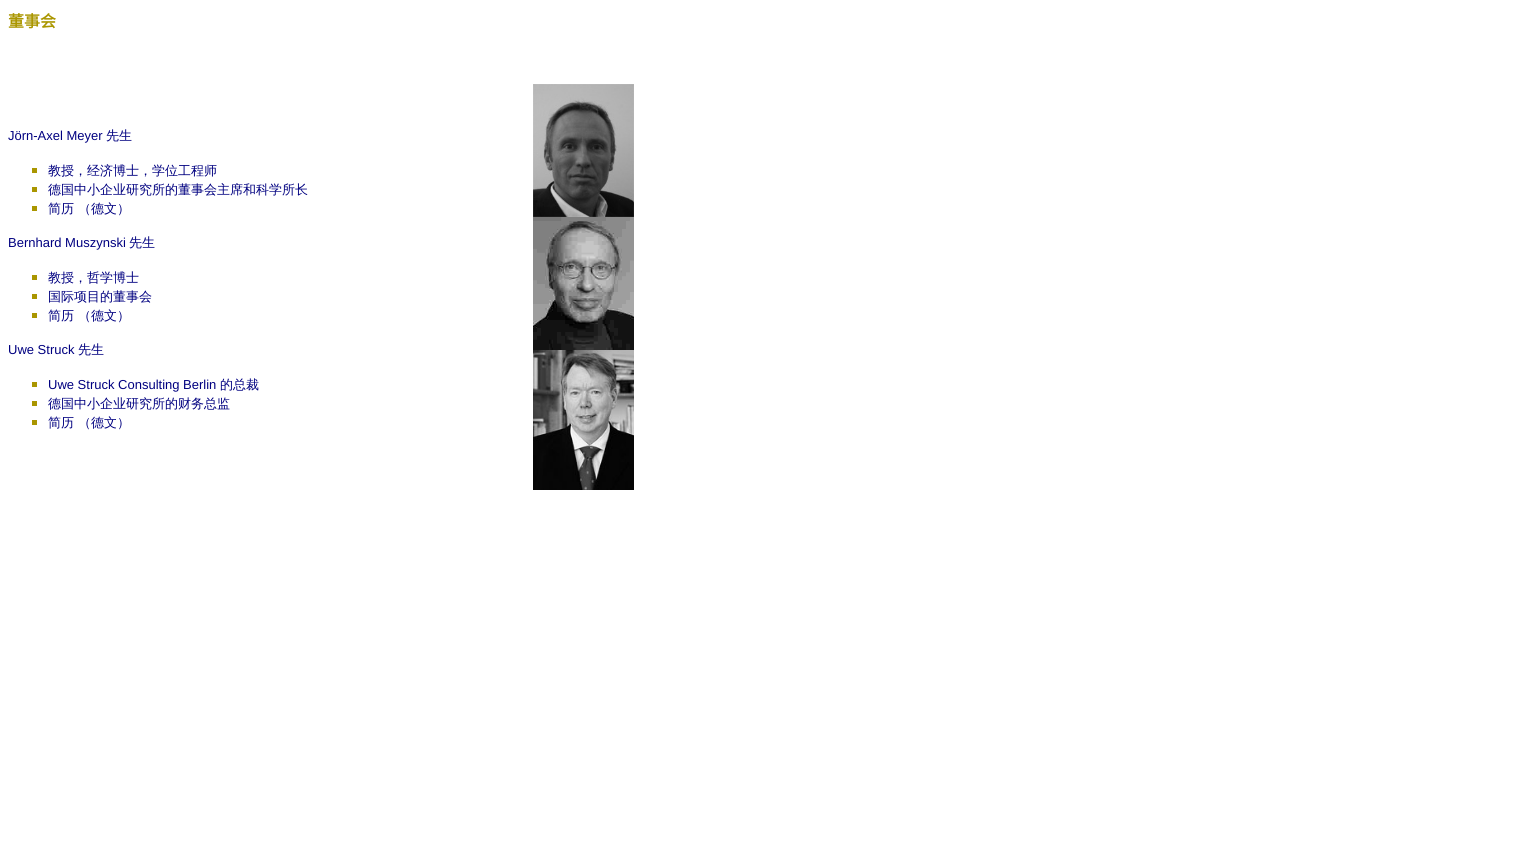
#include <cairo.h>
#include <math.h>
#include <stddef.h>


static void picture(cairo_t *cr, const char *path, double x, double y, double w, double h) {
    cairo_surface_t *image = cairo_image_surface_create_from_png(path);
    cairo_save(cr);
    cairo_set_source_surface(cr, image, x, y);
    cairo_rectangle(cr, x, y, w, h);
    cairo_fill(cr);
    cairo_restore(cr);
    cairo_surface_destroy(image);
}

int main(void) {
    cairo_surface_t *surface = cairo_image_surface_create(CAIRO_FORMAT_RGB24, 1532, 853);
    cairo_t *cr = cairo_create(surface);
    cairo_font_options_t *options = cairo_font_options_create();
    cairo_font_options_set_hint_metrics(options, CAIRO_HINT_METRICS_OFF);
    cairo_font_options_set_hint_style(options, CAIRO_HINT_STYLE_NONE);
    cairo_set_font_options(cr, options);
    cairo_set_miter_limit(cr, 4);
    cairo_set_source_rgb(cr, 1, 1, 1);
    cairo_paint(cr);
    cairo_select_font_face(cr, "Noto Sans CJK SC", CAIRO_FONT_SLANT_NORMAL, CAIRO_FONT_WEIGHT_BOLD);
    cairo_set_font_size(cr, 16);
    cairo_set_source_rgb(cr, 0.667, 0.588, 0);
    cairo_move_to(cr, 8, 27);
    cairo_show_text(cr, "董事会");
    cairo_select_font_face(cr, "Liberation Sans", CAIRO_FONT_SLANT_NORMAL, CAIRO_FONT_WEIGHT_NORMAL);
    cairo_set_font_size(cr, 13);
    cairo_set_source_rgb(cr, 0, 0, 0.502);
    cairo_move_to(cr, 8, 140);
    cairo_show_text(cr, "Jörn-Axel Meyer");
    cairo_select_font_face(cr, "WenQuanYi Zen Hei Medium", CAIRO_FONT_SLANT_NORMAL, CAIRO_FONT_WEIGHT_NORMAL);
    cairo_move_to(cr, 106, 140);
    cairo_show_text(cr, "先生");
    cairo_set_source_rgb(cr, 0.667, 0.588, 0);
    cairo_rectangle(cr, 32, 168, 5, 5);
    cairo_fill(cr);
    cairo_set_source_rgb(cr, 0, 0, 0.502);
    cairo_move_to(cr, 48, 175);
    cairo_show_text(cr, "教授，经济博士，学位工程师");
    cairo_set_source_rgb(cr, 0.667, 0.588, 0);
    cairo_rectangle(cr, 32, 187, 5, 5);
    cairo_fill(cr);
    cairo_set_source_rgb(cr, 0, 0, 0.502);
    cairo_move_to(cr, 48, 194);
    cairo_show_text(cr, "德国中小企业研究所的董事会主席和科学所长");
    cairo_set_source_rgb(cr, 0.667, 0.588, 0);
    cairo_rectangle(cr, 32, 206, 5, 5);
    cairo_fill(cr);
    cairo_set_source_rgb(cr, 0, 0, 0.502);
    cairo_move_to(cr, 48, 213);
    cairo_show_text(cr, "简历 （德文）");
    cairo_select_font_face(cr, "Liberation Sans", CAIRO_FONT_SLANT_NORMAL, CAIRO_FONT_WEIGHT_NORMAL);
    cairo_move_to(cr, 8, 247);
    cairo_show_text(cr, "Bernhard Muszynski");
    cairo_select_font_face(cr, "WenQuanYi Zen Hei Medium", CAIRO_FONT_SLANT_NORMAL, CAIRO_FONT_WEIGHT_NORMAL);
    cairo_move_to(cr, 129, 247);
    cairo_show_text(cr, "先生");
    cairo_set_source_rgb(cr, 0.667, 0.588, 0);
    cairo_rectangle(cr, 32, 275, 5, 5);
    cairo_fill(cr);
    cairo_set_source_rgb(cr, 0, 0, 0.502);
    cairo_move_to(cr, 48, 282);
    cairo_show_text(cr, "教授，哲学博士");
    cairo_set_source_rgb(cr, 0.667, 0.588, 0);
    cairo_rectangle(cr, 32, 294, 5, 5);
    cairo_fill(cr);
    cairo_set_source_rgb(cr, 0, 0, 0.502);
    cairo_move_to(cr, 48, 301);
    cairo_show_text(cr, "国际项目的董事会");
    cairo_set_source_rgb(cr, 0.667, 0.588, 0);
    cairo_rectangle(cr, 32, 313, 5, 5);
    cairo_fill(cr);
    cairo_set_source_rgb(cr, 0, 0, 0.502);
    cairo_move_to(cr, 48, 320);
    cairo_show_text(cr, "简历 （德文）");
    cairo_select_font_face(cr, "Liberation Sans", CAIRO_FONT_SLANT_NORMAL, CAIRO_FONT_WEIGHT_NORMAL);
    cairo_move_to(cr, 8, 354);
    cairo_show_text(cr, "Uwe Struck");
    cairo_select_font_face(cr, "WenQuanYi Zen Hei Medium", CAIRO_FONT_SLANT_NORMAL, CAIRO_FONT_WEIGHT_NORMAL);
    cairo_move_to(cr, 78, 354);
    cairo_show_text(cr, "先生");
    cairo_set_source_rgb(cr, 0.667, 0.588, 0);
    cairo_rectangle(cr, 32, 382, 5, 5);
    cairo_fill(cr);
    cairo_select_font_face(cr, "Liberation Sans", CAIRO_FONT_SLANT_NORMAL, CAIRO_FONT_WEIGHT_NORMAL);
    cairo_set_source_rgb(cr, 0, 0, 0.502);
    cairo_move_to(cr, 48, 389);
    cairo_show_text(cr, "Uwe Struck Consulting Berlin");
    cairo_select_font_face(cr, "WenQuanYi Zen Hei Medium", CAIRO_FONT_SLANT_NORMAL, CAIRO_FONT_WEIGHT_NORMAL);
    cairo_move_to(cr, 220, 389);
    cairo_show_text(cr, "的总裁");
    cairo_set_source_rgb(cr, 0.667, 0.588, 0);
    cairo_rectangle(cr, 32, 401, 5, 5);
    cairo_fill(cr);
    cairo_set_source_rgb(cr, 0, 0, 0.502);
    cairo_move_to(cr, 48, 408);
    cairo_show_text(cr, "德国中小企业研究所的财务总监");
    cairo_set_source_rgb(cr, 0.667, 0.588, 0);
    cairo_rectangle(cr, 32, 420, 5, 5);
    cairo_fill(cr);
    cairo_set_source_rgb(cr, 0, 0, 0.502);
    cairo_move_to(cr, 48, 427);
    cairo_show_text(cr, "简历 （德文）");
    picture(cr, "img1.png", 533, 84, 101, 133);
    picture(cr, "img2.png", 533, 217, 101, 133);
    picture(cr, "img3.png", 533, 350, 101, 140);
    cairo_surface_write_to_png(surface, "page.png");
    cairo_font_options_destroy(options);
    cairo_destroy(cr);
    cairo_surface_destroy(surface);
    return 0;
}
